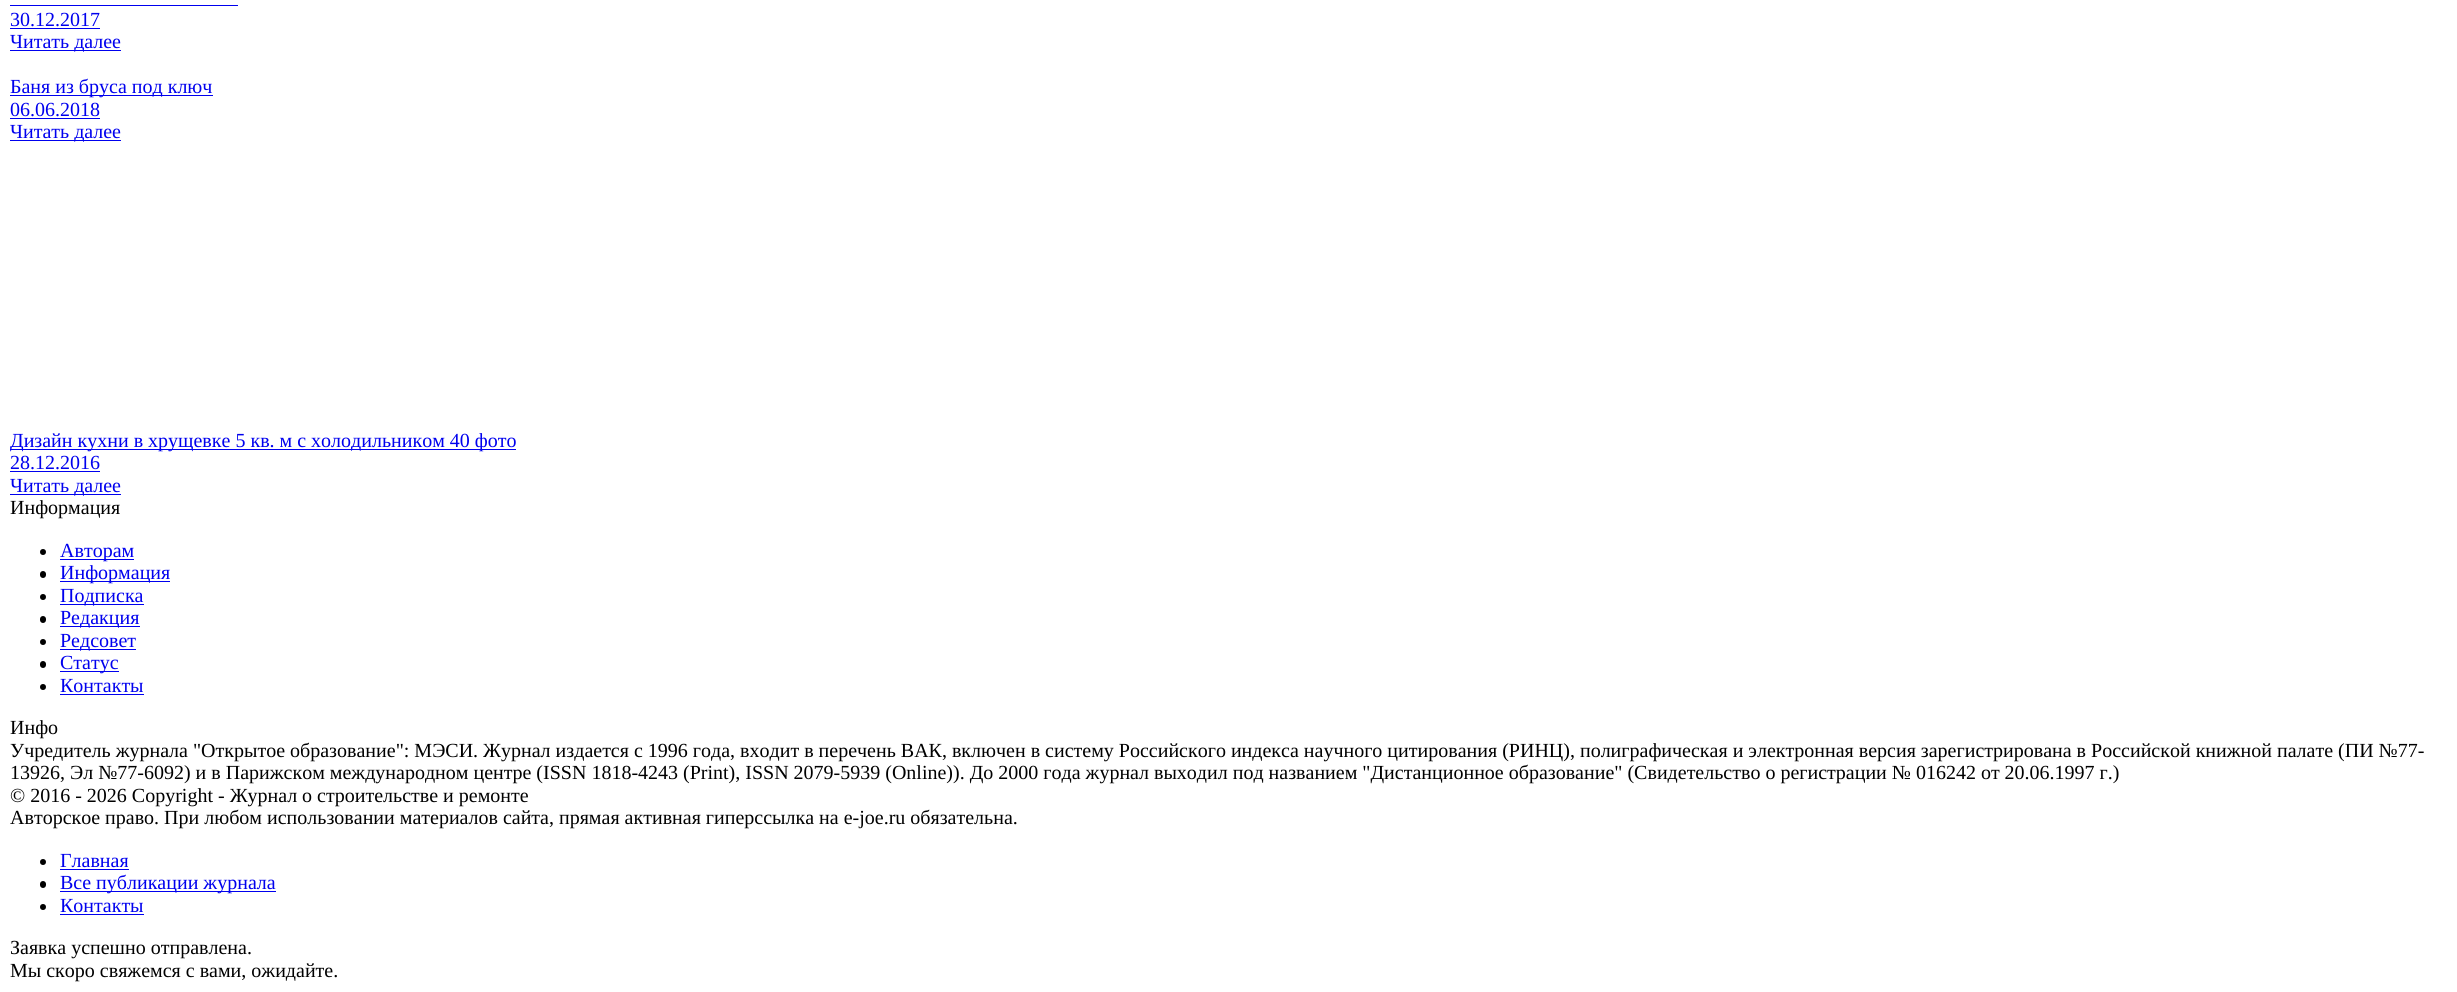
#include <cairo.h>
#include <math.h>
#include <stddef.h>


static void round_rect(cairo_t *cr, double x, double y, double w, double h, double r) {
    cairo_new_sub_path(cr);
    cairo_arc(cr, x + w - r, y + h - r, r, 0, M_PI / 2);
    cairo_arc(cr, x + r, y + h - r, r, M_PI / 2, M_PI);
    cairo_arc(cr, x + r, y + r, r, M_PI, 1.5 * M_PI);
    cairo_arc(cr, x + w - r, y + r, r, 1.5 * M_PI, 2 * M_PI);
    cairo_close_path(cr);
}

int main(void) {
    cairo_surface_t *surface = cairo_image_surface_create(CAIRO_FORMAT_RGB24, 2457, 992);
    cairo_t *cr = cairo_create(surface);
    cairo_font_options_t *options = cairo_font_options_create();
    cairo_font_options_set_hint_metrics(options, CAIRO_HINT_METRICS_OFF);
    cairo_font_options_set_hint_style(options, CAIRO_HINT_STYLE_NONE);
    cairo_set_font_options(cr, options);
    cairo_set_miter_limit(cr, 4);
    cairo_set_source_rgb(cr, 1, 1, 1);
    cairo_paint(cr);
    cairo_set_source_rgb(cr, 0, 0, 0.933);
    cairo_rectangle(cr, 10, 5, 228, 1);
    cairo_fill(cr);
    cairo_select_font_face(cr, "Liberation Serif", CAIRO_FONT_SLANT_NORMAL, CAIRO_FONT_WEIGHT_NORMAL);
    cairo_set_font_size(cr, 20);
    cairo_move_to(cr, 10, 26);
    cairo_show_text(cr, "30.12.2017");
    cairo_rectangle(cr, 10, 28, 90, 1);
    cairo_fill(cr);
    cairo_rectangle(cr, 10, 50, 111, 1);
    cairo_fill(cr);
    cairo_move_to(cr, 10, 48);
    cairo_show_text(cr, "Читать далее");
    cairo_rectangle(cr, 10, 95, 203, 1);
    cairo_fill(cr);
    cairo_move_to(cr, 10, 93);
    cairo_show_text(cr, "Баня из бруса под ключ");
    cairo_move_to(cr, 10, 116);
    cairo_show_text(cr, "06.06.2018");
    cairo_rectangle(cr, 10, 118, 90, 1);
    cairo_fill(cr);
    cairo_rectangle(cr, 10, 140, 111, 1);
    cairo_fill(cr);
    cairo_move_to(cr, 10, 138);
    cairo_show_text(cr, "Читать далее");
    cairo_rectangle(cr, 10, 449, 506, 1);
    cairo_fill(cr);
    cairo_move_to(cr, 10, 447);
    cairo_show_text(cr, "Дизайн кухни в хрущевке 5 кв. м с холодильником 40 фото");
    cairo_move_to(cr, 10, 469);
    cairo_show_text(cr, "28.12.2016");
    cairo_rectangle(cr, 10, 471, 90, 1);
    cairo_fill(cr);
    cairo_rectangle(cr, 10, 494, 111, 1);
    cairo_fill(cr);
    cairo_move_to(cr, 10, 492);
    cairo_show_text(cr, "Читать далее");
    cairo_set_source_rgb(cr, 0, 0, 0);
    cairo_move_to(cr, 10, 514);
    cairo_show_text(cr, "Информация");
    cairo_new_path(cr);
    cairo_arc(cr, 43, 552, 3, 0, 2 * M_PI);
    cairo_fill(cr);
    cairo_set_source_rgb(cr, 0, 0, 0.933);
    cairo_rectangle(cr, 60, 559, 74, 1);
    cairo_fill(cr);
    cairo_move_to(cr, 60, 557);
    cairo_show_text(cr, "Авторам");
    cairo_set_source_rgb(cr, 0, 0, 0);
    round_rect(cr, 40, 571, 6, 7, 3);
    cairo_fill(cr);
    cairo_set_source_rgb(cr, 0, 0, 0.933);
    cairo_rectangle(cr, 60, 581, 110, 1);
    cairo_fill(cr);
    cairo_move_to(cr, 60, 579);
    cairo_show_text(cr, "Информация");
    cairo_set_source_rgb(cr, 0, 0, 0);
    cairo_new_path(cr);
    cairo_arc(cr, 43, 597, 3, 0, 2 * M_PI);
    cairo_fill(cr);
    cairo_set_source_rgb(cr, 0, 0, 0.933);
    cairo_rectangle(cr, 60, 604, 84, 1);
    cairo_fill(cr);
    cairo_move_to(cr, 60, 602);
    cairo_show_text(cr, "Подписка");
    cairo_set_source_rgb(cr, 0, 0, 0);
    round_rect(cr, 40, 616, 6, 7, 3);
    cairo_fill(cr);
    cairo_set_source_rgb(cr, 0, 0, 0.933);
    cairo_rectangle(cr, 60, 626, 80, 1);
    cairo_fill(cr);
    cairo_move_to(cr, 60, 624);
    cairo_show_text(cr, "Редакция");
    cairo_set_source_rgb(cr, 0, 0, 0);
    cairo_new_path(cr);
    cairo_arc(cr, 43, 642, 3, 0, 2 * M_PI);
    cairo_fill(cr);
    cairo_set_source_rgb(cr, 0, 0, 0.933);
    cairo_rectangle(cr, 60, 649, 76, 1);
    cairo_fill(cr);
    cairo_move_to(cr, 60, 647);
    cairo_show_text(cr, "Редсовет");
    cairo_set_source_rgb(cr, 0, 0, 0);
    round_rect(cr, 40, 661, 6, 7, 3);
    cairo_fill(cr);
    cairo_set_source_rgb(cr, 0, 0, 0.933);
    cairo_rectangle(cr, 60, 671, 59, 1);
    cairo_fill(cr);
    cairo_move_to(cr, 60, 669);
    cairo_show_text(cr, "Статус");
    cairo_set_source_rgb(cr, 0, 0, 0);
    cairo_new_path(cr);
    cairo_arc(cr, 43, 687, 3, 0, 2 * M_PI);
    cairo_fill(cr);
    cairo_set_source_rgb(cr, 0, 0, 0.933);
    cairo_move_to(cr, 60, 692);
    cairo_show_text(cr, "Контакты");
    cairo_rectangle(cr, 60, 694, 84, 1);
    cairo_fill(cr);
    cairo_set_source_rgb(cr, 0, 0, 0);
    cairo_move_to(cr, 10, 734);
    cairo_show_text(cr, "Инфо");
    cairo_move_to(cr, 10, 757);
    cairo_show_text(cr, "Учредитель журнала \"Открытое образование\": МЭСИ. Журнал издается с 1996 года, входит в перечень ВАК, включен в систему Российского индекса научного цитирования (РИНЦ), полиграфическая и электронная версия зарегистрирована в Российской книжной палате (ПИ №77-");
    cairo_move_to(cr, 10, 779);
    cairo_show_text(cr, "13926, Эл №77-6092) и в Парижском международном центре (ISSN 1818-4243 (Print), ISSN 2079-5939 (Online)). До 2000 года журнал выходил под названием \"Дистанционное образование\" (Свидетельство о регистрации № 016242 от 20.06.1997 г.)");
    cairo_move_to(cr, 10, 802);
    cairo_show_text(cr, "© 2016 - 2026 Copyright - Журнал о строительстве и ремонте");
    cairo_move_to(cr, 10, 824);
    cairo_show_text(cr, "Авторское право. При любом использовании материалов сайта, прямая активная гиперссылка на e-joe.ru обязательна.");
    cairo_new_path(cr);
    cairo_arc(cr, 43, 862, 3, 0, 2 * M_PI);
    cairo_fill(cr);
    cairo_set_source_rgb(cr, 0, 0, 0.933);
    cairo_move_to(cr, 60, 867);
    cairo_show_text(cr, "Главная");
    cairo_rectangle(cr, 60, 869, 69, 1);
    cairo_fill(cr);
    cairo_set_source_rgb(cr, 0, 0, 0);
    round_rect(cr, 40, 881, 6, 7, 3);
    cairo_fill(cr);
    cairo_set_source_rgb(cr, 0, 0, 0.933);
    cairo_rectangle(cr, 60, 891, 216, 1);
    cairo_fill(cr);
    cairo_move_to(cr, 60, 889);
    cairo_show_text(cr, "Все публикации журнала");
    cairo_set_source_rgb(cr, 0, 0, 0);
    cairo_new_path(cr);
    cairo_arc(cr, 43, 907, 3, 0, 2 * M_PI);
    cairo_fill(cr);
    cairo_set_source_rgb(cr, 0, 0, 0.933);
    cairo_move_to(cr, 60, 912);
    cairo_show_text(cr, "Контакты");
    cairo_rectangle(cr, 60, 914, 84, 1);
    cairo_fill(cr);
    cairo_set_source_rgb(cr, 0, 0, 0);
    cairo_move_to(cr, 10, 954);
    cairo_show_text(cr, "Заявка успешно отправлена.");
    cairo_move_to(cr, 10, 977);
    cairo_show_text(cr, "Мы скоро свяжемся с вами, ожидайте.");
    cairo_surface_write_to_png(surface, "page.png");
    cairo_font_options_destroy(options);
    cairo_destroy(cr);
    cairo_surface_destroy(surface);
    return 0;
}
